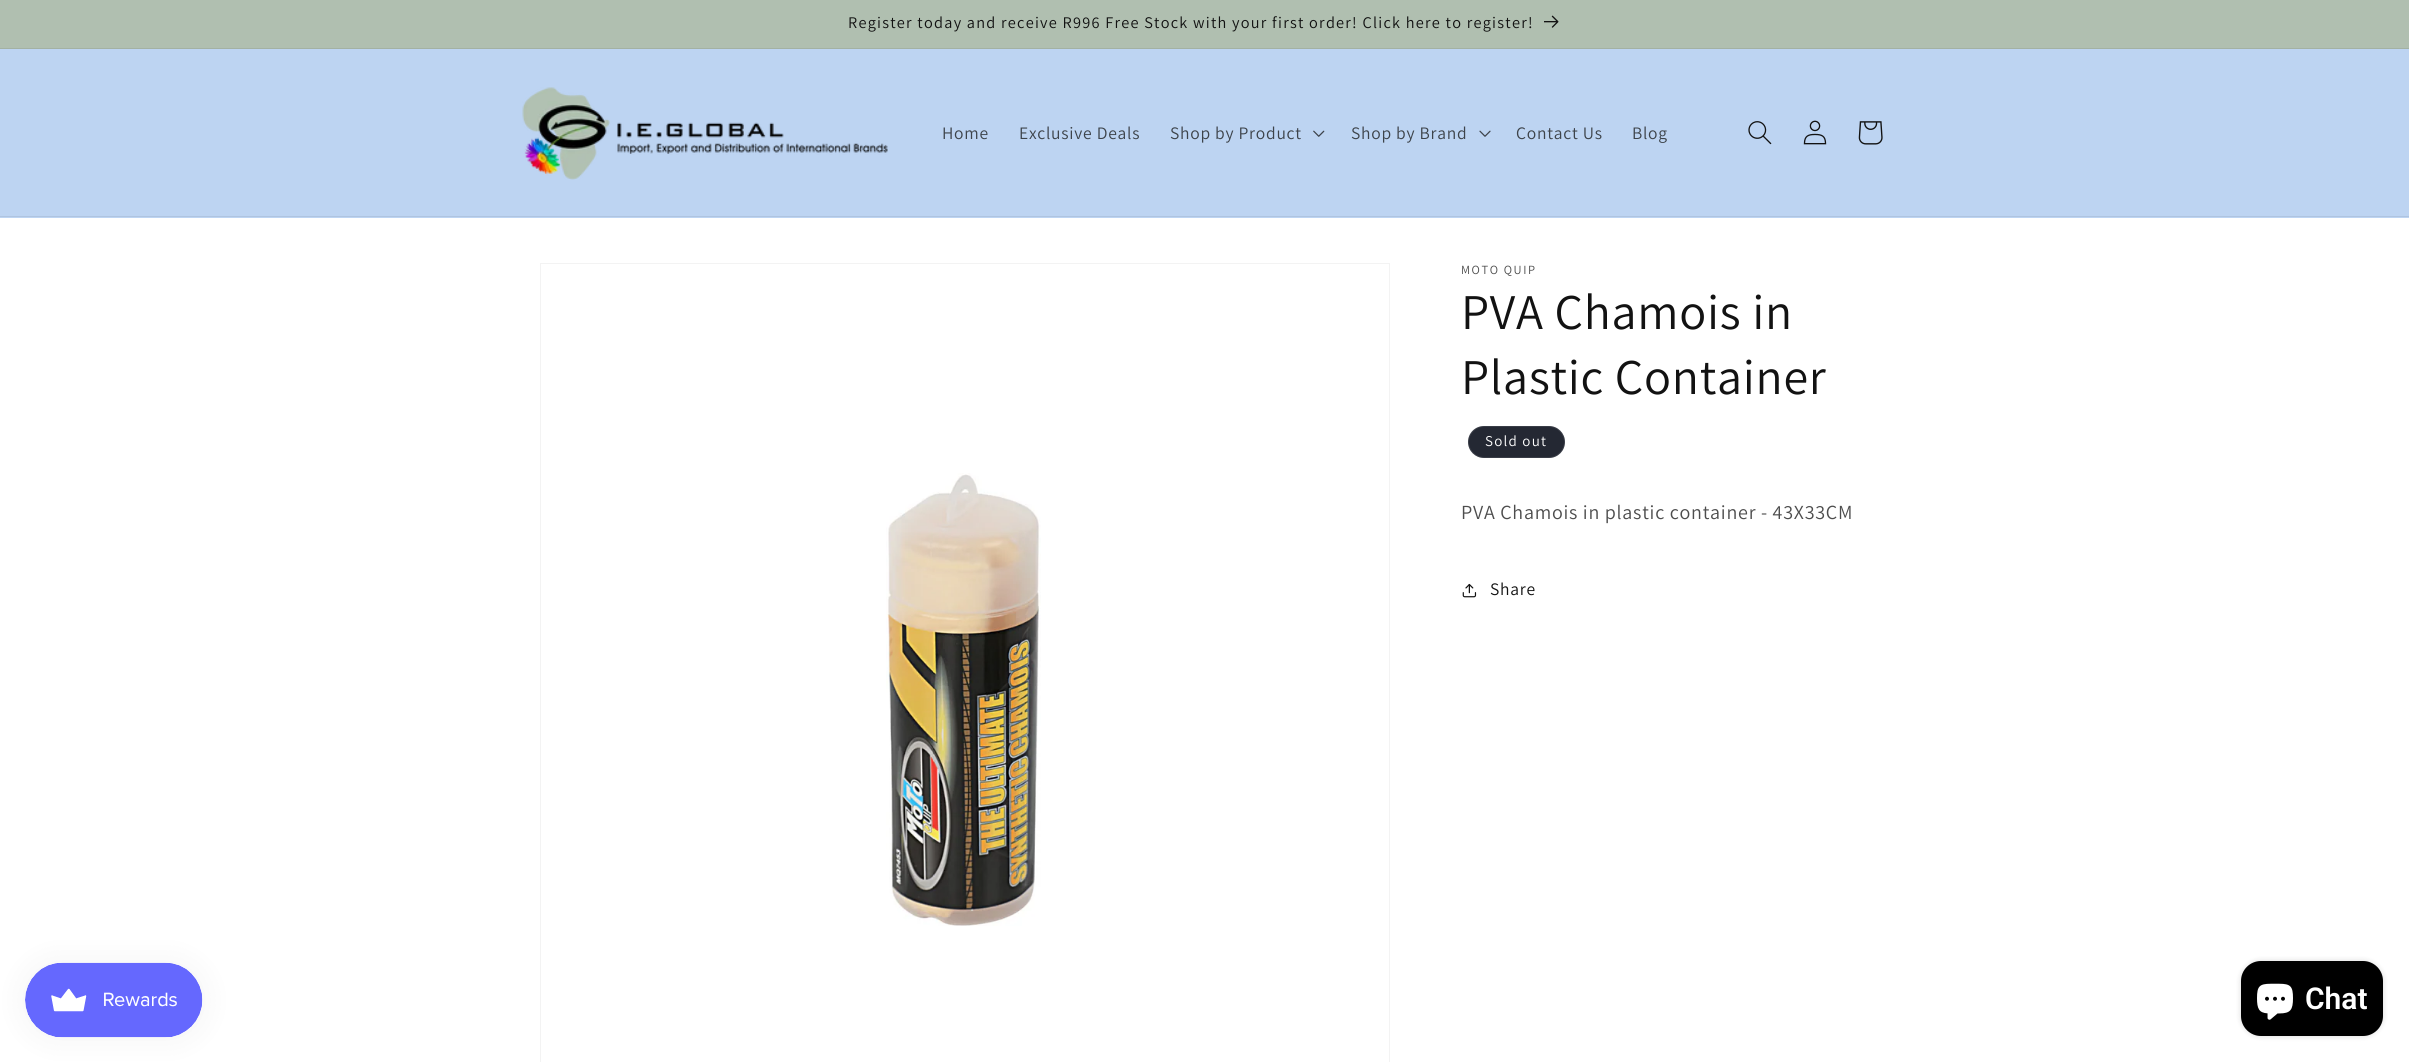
#include <cairo.h>
#include <math.h>
#include <stddef.h>


static void spaced_text(cairo_t *cr, double x, double y, const char *s, double letter, double word) {
    cairo_move_to(cr, x, y);
    while (*s) {
        char ch[5] = {0};
        int n = 0;
        do ch[n++] = *s++; while ((*s & 0xC0) == 0x80);
        cairo_show_text(cr, ch);
        cairo_rel_move_to(cr, letter + word * (*ch == ' '), 0);
    }
}

static void round_rect(cairo_t *cr, double x, double y, double w, double h, double r) {
    cairo_new_sub_path(cr);
    cairo_arc(cr, x + w - r, y + h - r, r, 0, M_PI / 2);
    cairo_arc(cr, x + r, y + h - r, r, M_PI / 2, M_PI);
    cairo_arc(cr, x + r, y + r, r, M_PI, 1.5 * M_PI);
    cairo_arc(cr, x + w - r, y + r, r, 1.5 * M_PI, 2 * M_PI);
    cairo_close_path(cr);
}

static void shadow(cairo_t *cr, double x, double y, double w, double h, double r, double blur, double alpha) {
    cairo_push_group_with_content(cr, CAIRO_CONTENT_ALPHA);
    cairo_set_operator(cr, CAIRO_OPERATOR_SOURCE);
    for (int i = 15; i >= -15 && fmin(w, h) + blur * i / 3 > 0; i -= 2) {
        double e = blur * i / 6;
        cairo_set_source_rgba(cr, 0, 0, 0, alpha * erfc((i - 1) / 8.5) / 2);
        round_rect(cr, x - e, y - e, w + 2 * e, h + 2 * e, fmax(0, fmin(r + e + blur * .6, fmin(w, h) / 2 + e)));
        cairo_fill(cr);
    }
    cairo_pattern_t *soft = cairo_pop_group(cr);
    cairo_mask(cr, soft);
    cairo_pattern_destroy(soft);
}

static void picture(cairo_t *cr, const char *path, double x, double y, double w, double h) {
    cairo_surface_t *image = cairo_image_surface_create_from_png(path);
    cairo_save(cr);
    cairo_set_source_surface(cr, image, x, y);
    cairo_rectangle(cr, x, y, w, h);
    cairo_fill(cr);
    cairo_restore(cr);
    cairo_surface_destroy(image);
}

int main(void) {
    cairo_surface_t *surface = cairo_image_surface_create(CAIRO_FORMAT_RGB24, 2409, 1062);
    cairo_t *cr = cairo_create(surface);
    cairo_font_options_t *options = cairo_font_options_create();
    cairo_font_options_set_hint_metrics(options, CAIRO_HINT_METRICS_OFF);
    cairo_font_options_set_hint_style(options, CAIRO_HINT_STYLE_NONE);
    cairo_set_font_options(cr, options);
    cairo_set_miter_limit(cr, 4);
    cairo_set_source_rgb(cr, 1, 1, 1);
    cairo_paint(cr);
    cairo_set_source_rgb(cr, 0.69, 0.749, 0.69);
    cairo_rectangle(cr, 0, 0, 2409, 48);
    cairo_fill(cr);
    cairo_set_source_rgb(cr, 0.639, 0.694, 0.639);
    cairo_rectangle(cr, 0, 48, 2409, 1);
    cairo_fill(cr);
    cairo_select_font_face(cr, "Assistant", CAIRO_FONT_SLANT_NORMAL, CAIRO_FONT_WEIGHT_NORMAL);
    cairo_set_font_size(cr, 16.25);
    cairo_set_source_rgb(cr, 0.071, 0.071, 0.071);
    spaced_text(cr, 848, 28, "Register today and receive R996 Free Stock with your first order! Click here to register!", 1.25, 0);
    picture(cr, "img1.png", 1544, 15, 15, 13);
    cairo_set_source_rgb(cr, 0.741, 0.831, 0.949);
    cairo_rectangle(cr, 0, 49, 2409, 169);
    cairo_fill(cr);
    cairo_set_source_rgb(cr, 0.686, 0.769, 0.878);
    cairo_rectangle(cr, 0, 216, 2409, 1);
    cairo_fill(cr);
    picture(cr, "img2.png", 522, 87, 366, 93);
    cairo_set_font_size(cr, 17.5);
    cairo_set_source_rgb(cr, 0.239, 0.263, 0.29);
    spaced_text(cr, 942, 139, "Home", 0.75, 0);
    spaced_text(cr, 1019, 139, "Exclusive Deals", 0.75, 0);
    spaced_text(cr, 1170, 139, "Shop by Product", 0.75, 0);
    picture(cr, "img3.png", 1313, 130, 12, 7);
    spaced_text(cr, 1351, 139, "Shop by Brand", 0.75, 0);
    picture(cr, "img4.png", 1479, 130, 12, 7);
    spaced_text(cr, 1516, 139, "Contact Us", 0.75, 0);
    spaced_text(cr, 1632, 139, "Blog", 0.75, 0);
    picture(cr, "img5.png", 1748, 121, 24, 24);
    picture(cr, "img6.png", 1803, 120, 24, 25);
    picture(cr, "img7.png", 1858, 121, 25, 24);
    cairo_rectangle(cr, 540.5, 263.5, 849, 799);
    cairo_set_source_rgb(cr, 0.953, 0.953, 0.953);
    cairo_set_line_width(cr, 1);
    cairo_stroke(cr);
    picture(cr, "img8.png", 886, 473, 155, 453);
    cairo_set_font_size(cr, 12.5);
    cairo_set_source_rgb(cr, 0.302, 0.302, 0.302);
    spaced_text(cr, 1461, 274, "MOTO QUIP", 1.6, 0);
    cairo_set_font_size(cr, 50);
    cairo_set_source_rgb(cr, 0.071, 0.071, 0.071);
    spaced_text(cr, 1461, 329, "PVA Chamois in", 0.75, 0);
    spaced_text(cr, 1461, 394, "Plastic Container", 0.75, 0);
    cairo_set_source_rgb(cr, 0.141, 0.157, 0.2);
    round_rect(cr, 1468, 426, 97, 32, 16);
    cairo_fill(cr);
    round_rect(cr, 1468.5, 426.5, 96, 31, 15.5);
    cairo_set_source_rgba(cr, 1, 1, 1, 0.1);
    cairo_stroke(cr);
    cairo_set_font_size(cr, 15);
    cairo_set_source_rgb(cr, 1, 1, 1);
    spaced_text(cr, 1485, 446, "Sold out", 1.25, 0);
    cairo_set_font_size(cr, 20);
    cairo_set_source_rgb(cr, 0.302, 0.302, 0.302);
    spaced_text(cr, 1461, 519, "PVA Chamois in plastic container - 43X33CM", 0.75, 0);
    picture(cr, "img9.png", 1462, 583, 15, 15);
    cairo_set_font_size(cr, 17.5);
    cairo_set_source_rgb(cr, 0.071, 0.071, 0.071);
    spaced_text(cr, 1490, 595, "Share", 0.75, 0);
    cairo_set_source_rgb(cr, 0, 0, 0);
    shadow(cr, 25, 963, 178, 75, 37.5, 15.5, 0.05);
    picture(cr, "img10.png", 25, 962, 178, 76);
    shadow(cr, 2241, 961, 142, 75, 20, 3, 0.15);
    cairo_set_source_rgb(cr, 0, 0, 0);
    round_rect(cr, 2241, 961, 142, 75, 20);
    cairo_fill(cr);
    picture(cr, "img11.png", 2257, 983, 36, 37);
    cairo_select_font_face(cr, "Roboto SemiBold", CAIRO_FONT_SLANT_NORMAL, CAIRO_FONT_WEIGHT_NORMAL);
    cairo_set_font_size(cr, 30);
    cairo_set_source_rgb(cr, 1, 1, 1);
    cairo_move_to(cr, 2305, 1009);
    cairo_show_text(cr, "Chat");
    cairo_surface_write_to_png(surface, "page.png");
    cairo_font_options_destroy(options);
    cairo_destroy(cr);
    cairo_surface_destroy(surface);
    return 0;
}
